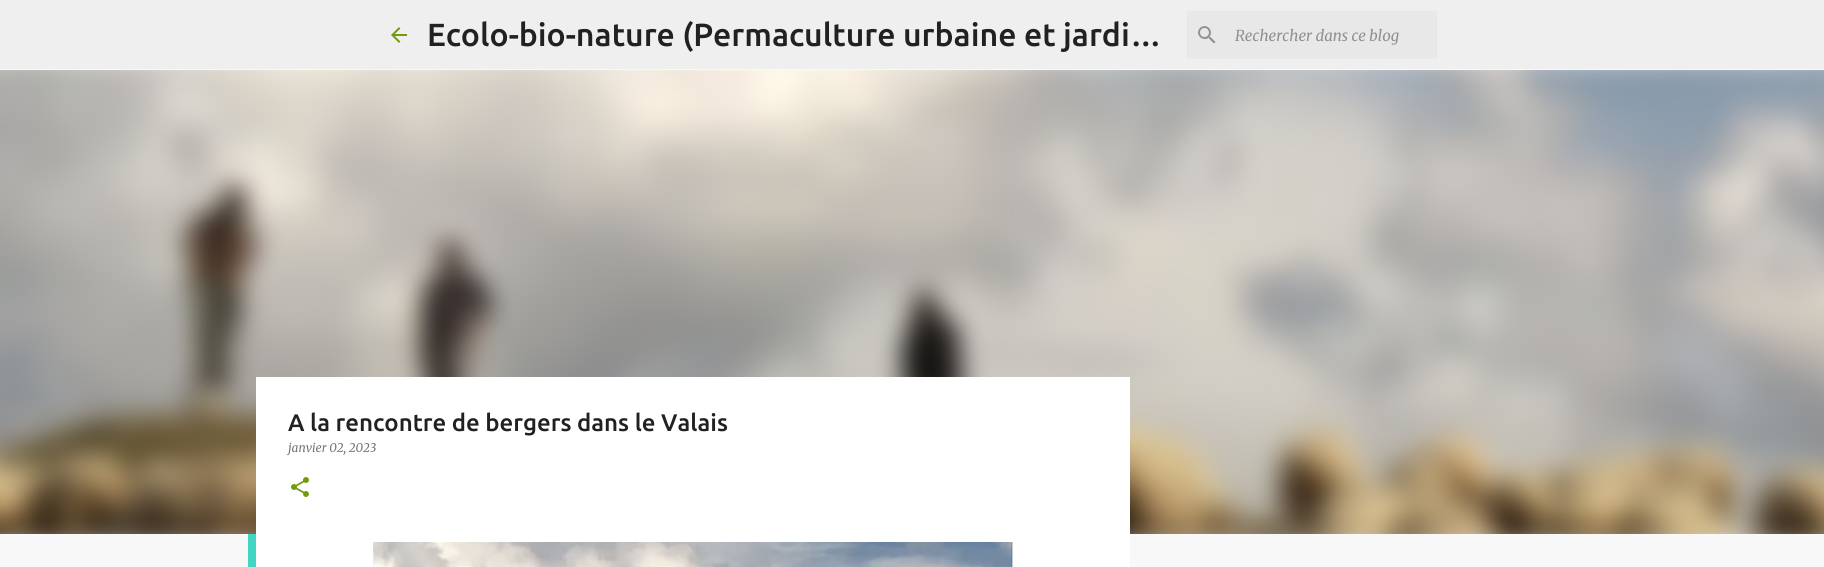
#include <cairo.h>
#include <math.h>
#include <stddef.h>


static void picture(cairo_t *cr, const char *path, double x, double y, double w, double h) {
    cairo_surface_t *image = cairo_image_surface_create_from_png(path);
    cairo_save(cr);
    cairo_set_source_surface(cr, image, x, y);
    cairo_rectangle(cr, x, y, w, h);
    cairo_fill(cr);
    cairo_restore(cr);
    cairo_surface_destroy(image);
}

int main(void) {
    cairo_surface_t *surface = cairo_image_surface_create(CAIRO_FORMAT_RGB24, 1824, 567);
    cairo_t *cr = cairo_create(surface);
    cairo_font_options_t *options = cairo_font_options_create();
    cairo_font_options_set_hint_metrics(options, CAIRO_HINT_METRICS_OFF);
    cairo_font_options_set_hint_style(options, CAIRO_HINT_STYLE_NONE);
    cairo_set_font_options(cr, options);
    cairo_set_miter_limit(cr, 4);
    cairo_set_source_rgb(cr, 0.969, 0.969, 0.969);
    cairo_paint(cr);
    cairo_set_source_rgb(cr, 0.937, 0.937, 0.937);
    cairo_rectangle(cr, 0, 0, 1824, 69);
    cairo_fill(cr);
    picture(cr, "img1.png", 391, 27, 16, 16);
    cairo_select_font_face(cr, "Ubuntu Medium", CAIRO_FONT_SLANT_NORMAL, CAIRO_FONT_WEIGHT_NORMAL);
    cairo_set_font_size(cr, 32);
    cairo_set_source_rgb(cr, 0.129, 0.129, 0.129);
    cairo_move_to(cr, 427, 46);
    cairo_show_text(cr, "Ecolo-bio-nature (Permaculture urbaine et jardi…");
    cairo_set_source_rgb(cr, 0.91, 0.91, 0.91);
    cairo_rectangle(cr, 1187, 11, 250, 48);
    cairo_fill(cr);
    picture(cr, "img2.png", 1198, 26, 18, 18);
    cairo_select_font_face(cr, "Merriweather", CAIRO_FONT_SLANT_ITALIC, CAIRO_FONT_WEIGHT_NORMAL);
    cairo_set_font_size(cr, 15);
    cairo_set_source_rgb(cr, 0.565, 0.565, 0.565);
    cairo_move_to(cr, 1235, 41);
    cairo_show_text(cr, "Rechercher dans ce blog");
    picture(cr, "img6.png", 0, 70, 1824, 464);
    cairo_set_source_rgb(cr, 1, 1, 1);
    cairo_rectangle(cr, 256, 377, 874, 190);
    cairo_fill(cr);
    cairo_select_font_face(cr, "Ubuntu Medium", CAIRO_FONT_SLANT_NORMAL, CAIRO_FONT_WEIGHT_NORMAL);
    cairo_set_font_size(cr, 24);
    cairo_set_source_rgb(cr, 0.129, 0.129, 0.129);
    cairo_move_to(cr, 288, 431);
    cairo_show_text(cr, "A la rencontre de bergers dans le Valais");
    cairo_select_font_face(cr, "Merriweather", CAIRO_FONT_SLANT_ITALIC, CAIRO_FONT_WEIGHT_NORMAL);
    cairo_set_font_size(cr, 12);
    cairo_set_source_rgb(cr, 0.459, 0.459, 0.459);
    cairo_move_to(cr, 288, 452);
    cairo_show_text(cr, "janvier 02, 2023");
    picture(cr, "img3.png", 291, 477, 18, 20);
    picture(cr, "img4.png", 373, 542, 640, 25);
    picture(cr, "img5.png", 248, 534, 8, 33);
    cairo_surface_write_to_png(surface, "page.png");
    cairo_font_options_destroy(options);
    cairo_destroy(cr);
    cairo_surface_destroy(surface);
    return 0;
}
